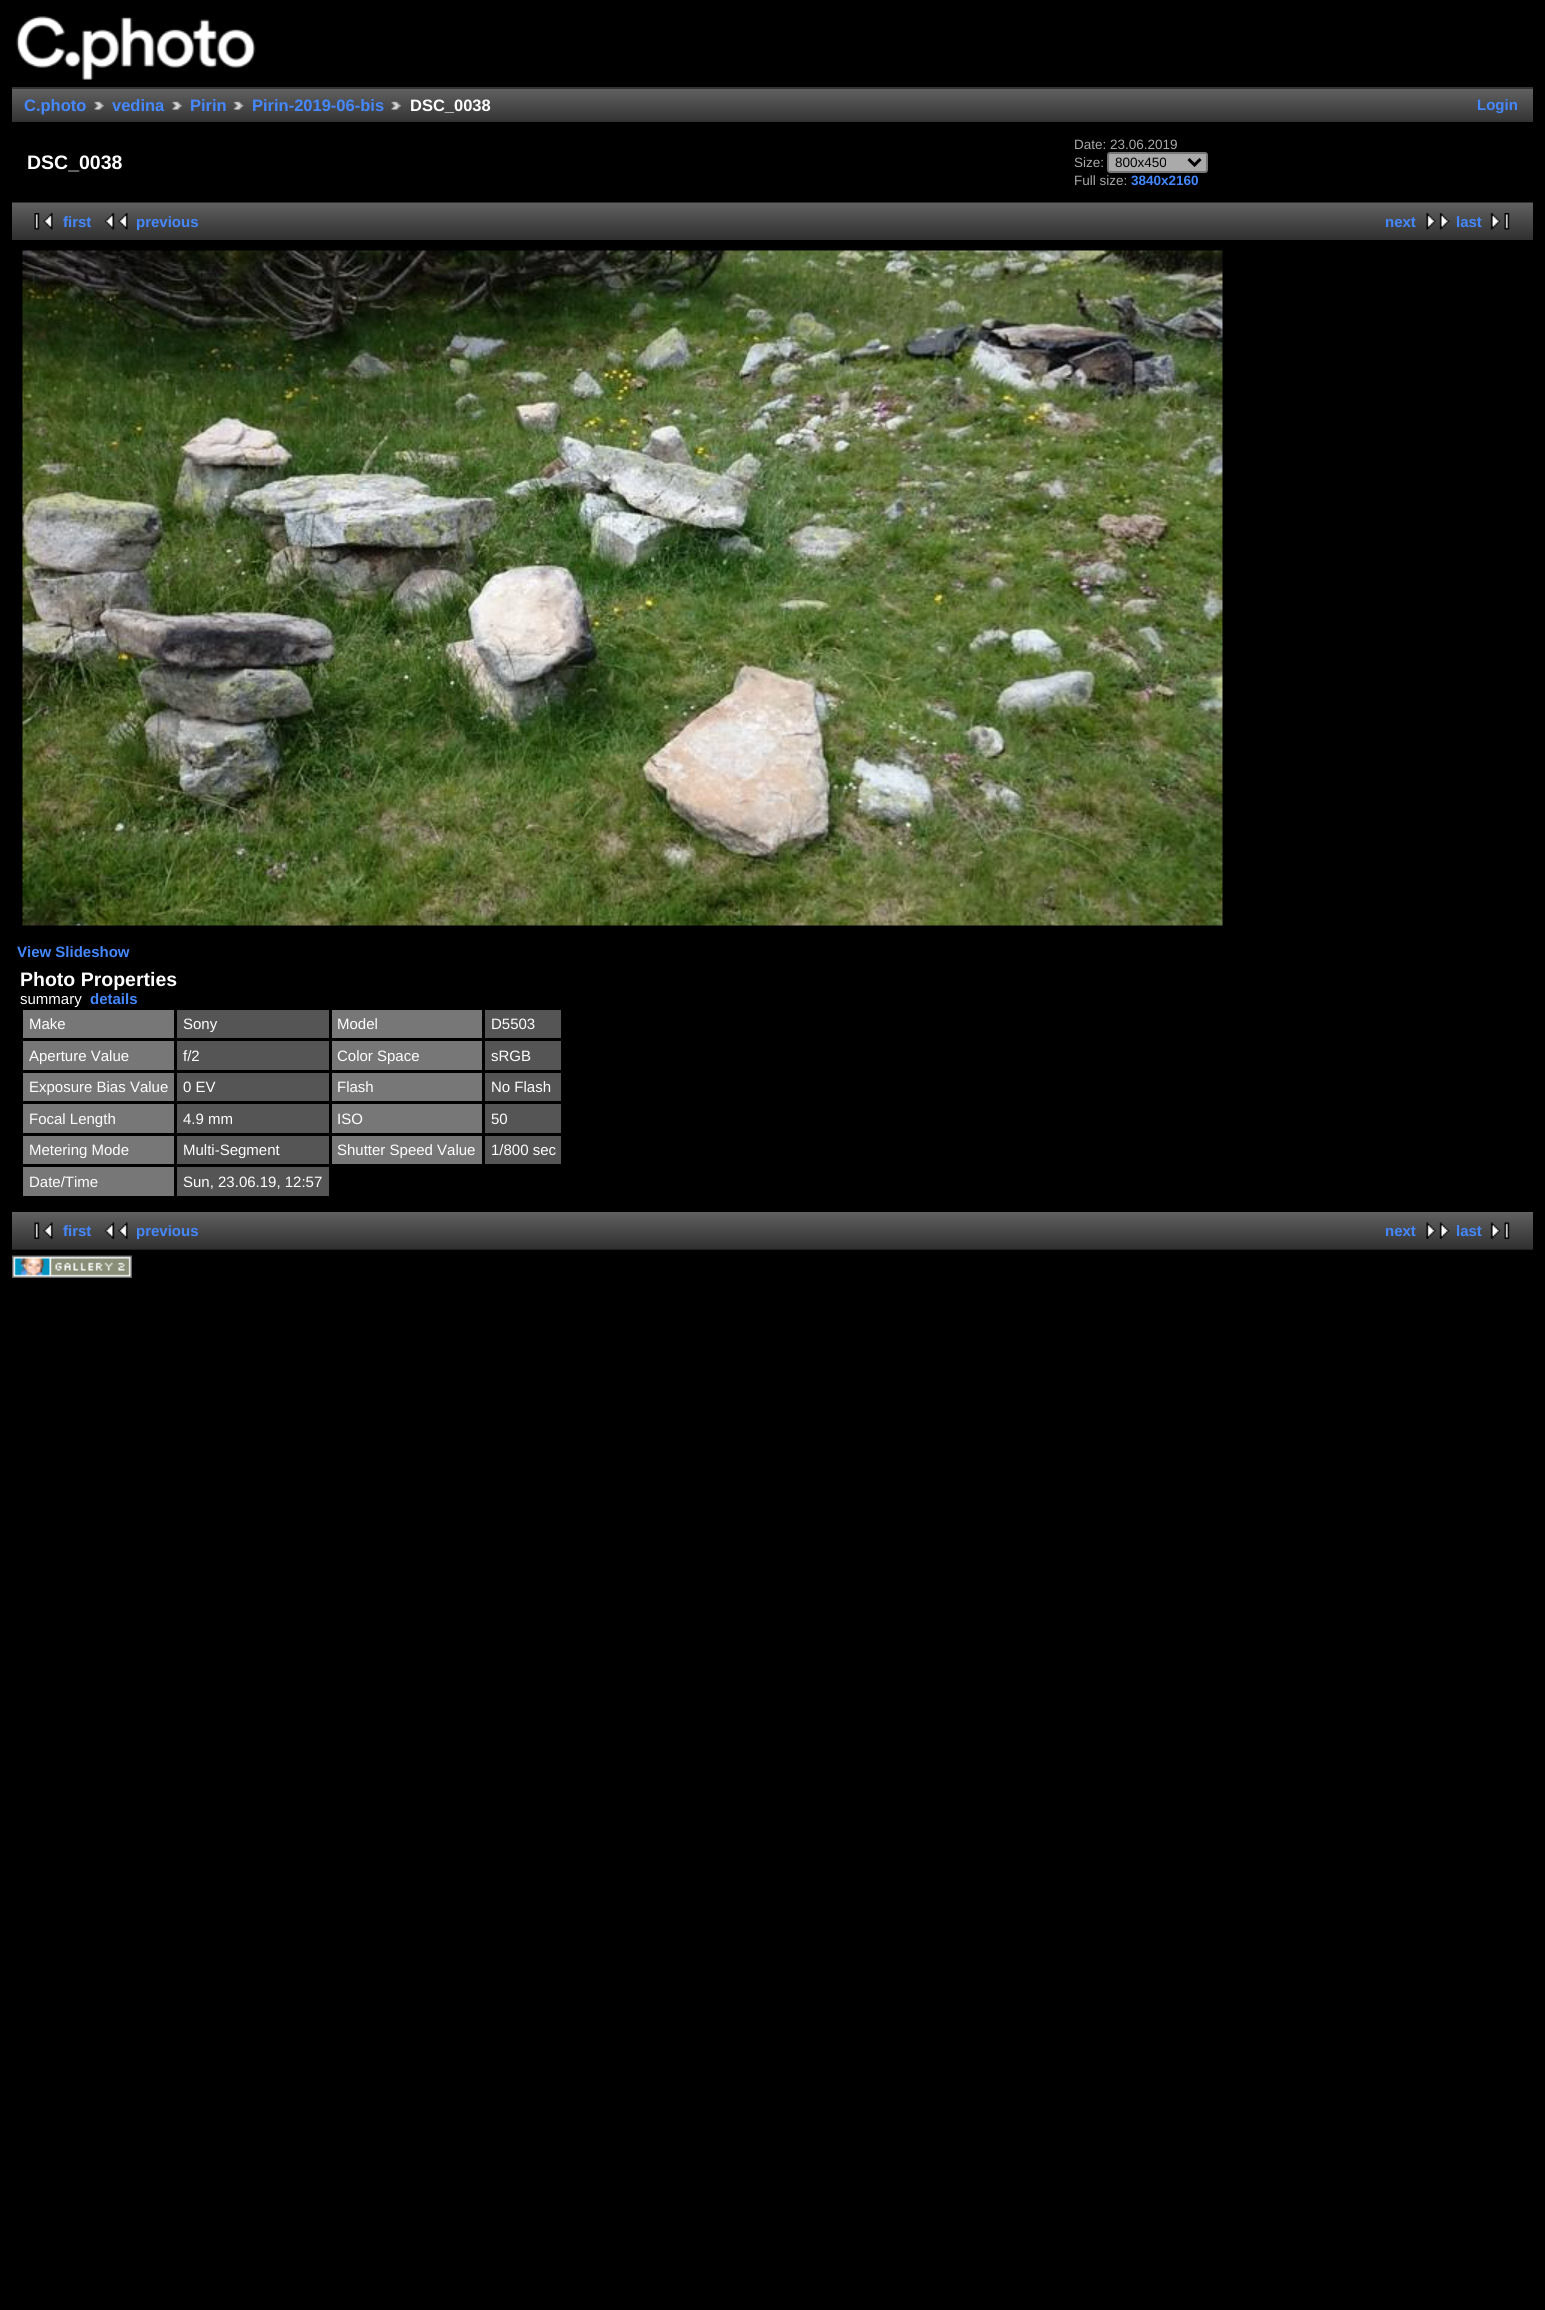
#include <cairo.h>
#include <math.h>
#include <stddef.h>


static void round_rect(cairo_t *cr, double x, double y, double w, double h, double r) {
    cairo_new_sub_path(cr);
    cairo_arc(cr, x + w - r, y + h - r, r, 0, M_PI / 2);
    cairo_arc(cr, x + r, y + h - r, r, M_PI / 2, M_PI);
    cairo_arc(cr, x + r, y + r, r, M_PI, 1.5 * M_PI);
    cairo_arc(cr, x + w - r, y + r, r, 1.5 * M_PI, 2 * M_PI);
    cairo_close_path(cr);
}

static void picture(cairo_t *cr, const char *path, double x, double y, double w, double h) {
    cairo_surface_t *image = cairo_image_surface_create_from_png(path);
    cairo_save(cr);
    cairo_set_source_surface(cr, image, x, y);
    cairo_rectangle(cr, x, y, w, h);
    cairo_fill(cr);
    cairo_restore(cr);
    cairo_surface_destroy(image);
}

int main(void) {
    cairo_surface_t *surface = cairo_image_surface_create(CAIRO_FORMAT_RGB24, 1545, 2310);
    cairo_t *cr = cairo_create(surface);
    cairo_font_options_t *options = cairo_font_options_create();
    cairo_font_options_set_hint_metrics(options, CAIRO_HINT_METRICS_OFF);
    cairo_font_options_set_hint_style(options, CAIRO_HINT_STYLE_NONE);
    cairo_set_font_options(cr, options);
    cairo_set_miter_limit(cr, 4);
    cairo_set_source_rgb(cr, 0, 0, 0);
    cairo_paint(cr);
    picture(cr, "img1.png", 16, 16, 240, 64);
    picture(cr, "img2.png", 12, 89, 1521, 31);
    cairo_set_source_rgb(cr, 0.2, 0.2, 0.2);
    cairo_rectangle(cr, 12, 87, 1521, 2);
    cairo_fill(cr);
    cairo_rectangle(cr, 12, 120, 1521, 2);
    cairo_fill(cr);
    cairo_select_font_face(cr, "Liberation Sans", CAIRO_FONT_SLANT_NORMAL, CAIRO_FONT_WEIGHT_BOLD);
    cairo_set_font_size(cr, 16.5);
    cairo_set_source_rgb(cr, 0.267, 0.533, 1);
    cairo_move_to(cr, 24, 111);
    cairo_show_text(cr, "C.photo");
    picture(cr, "img3.png", 94, 101, 10, 9);
    cairo_move_to(cr, 112, 111);
    cairo_show_text(cr, "vedina");
    picture(cr, "img3.png", 172, 101, 10, 9);
    cairo_move_to(cr, 190, 111);
    cairo_show_text(cr, "Pirin");
    picture(cr, "img4.png", 233, 101, 11, 9);
    cairo_move_to(cr, 252, 111);
    cairo_show_text(cr, "Pirin-2019-06-bis");
    picture(cr, "img5.png", 391, 101, 10, 9);
    cairo_set_source_rgb(cr, 1, 1, 1);
    cairo_move_to(cr, 410, 111);
    cairo_show_text(cr, "DSC_0038");
    cairo_set_font_size(cr, 15);
    cairo_set_source_rgb(cr, 0.267, 0.533, 1);
    cairo_move_to(cr, 1477, 110);
    cairo_show_text(cr, "Login");
    cairo_set_font_size(cr, 19.5);
    cairo_set_source_rgb(cr, 1, 1, 1);
    cairo_move_to(cr, 27, 169);
    cairo_show_text(cr, "DSC_0038");
    cairo_select_font_face(cr, "Liberation Sans", CAIRO_FONT_SLANT_NORMAL, CAIRO_FONT_WEIGHT_NORMAL);
    cairo_set_font_size(cr, 13.5);
    cairo_set_source_rgb(cr, 0.667, 0.667, 0.667);
    cairo_move_to(cr, 1074, 149);
    cairo_show_text(cr, "Date: 23.06.2019");
    cairo_move_to(cr, 1074, 167);
    cairo_show_text(cr, "Size:");
    round_rect(cr, 1108, 153, 99, 19, 2);
    cairo_fill_preserve(cr);
    cairo_set_source_rgb(cr, 0.463, 0.463, 0.463);
    cairo_stroke(cr);
    cairo_new_path(cr);
    cairo_move_to(cr, 1188.5, 159);
    cairo_line_to(cr, 1194.5, 165);
    cairo_line_to(cr, 1200.5, 159);
    cairo_set_source_rgb(cr, 0, 0, 0);
    cairo_set_line_width(cr, 3);
    cairo_stroke(cr);
    cairo_move_to(cr, 1115, 167);
    cairo_show_text(cr, "800x450");
    cairo_set_source_rgb(cr, 0.667, 0.667, 0.667);
    cairo_move_to(cr, 1074, 185);
    cairo_show_text(cr, "Full size:");
    cairo_select_font_face(cr, "Liberation Sans", CAIRO_FONT_SLANT_NORMAL, CAIRO_FONT_WEIGHT_BOLD);
    cairo_set_source_rgb(cr, 0.267, 0.533, 1);
    cairo_move_to(cr, 1131, 185);
    cairo_show_text(cr, "3840x2160");
    picture(cr, "img6.png", 12, 202, 1521, 38);
    picture(cr, "img7.png", 34, 213, 19, 17);
    cairo_set_font_size(cr, 15);
    cairo_move_to(cr, 63, 227);
    cairo_show_text(cr, "first");
    picture(cr, "img8.png", 104, 213, 24, 17);
    cairo_move_to(cr, 136, 227);
    cairo_show_text(cr, "previous");
    cairo_move_to(cr, 1385, 227);
    cairo_show_text(cr, "next");
    picture(cr, "img9.png", 1426, 213, 24, 17);
    cairo_move_to(cr, 1456, 227);
    cairo_show_text(cr, "last");
    picture(cr, "img10.png", 1490, 213, 20, 17);
    picture(cr, "img11.png", 22, 250, 1201, 676);
    cairo_move_to(cr, 17, 957);
    cairo_show_text(cr, "View Slideshow");
    cairo_set_font_size(cr, 19.5);
    cairo_set_source_rgb(cr, 1, 1, 1);
    cairo_move_to(cr, 20, 986);
    cairo_show_text(cr, "Photo Properties");
    cairo_select_font_face(cr, "Liberation Sans", CAIRO_FONT_SLANT_NORMAL, CAIRO_FONT_WEIGHT_NORMAL);
    cairo_set_font_size(cr, 15);
    cairo_move_to(cr, 20, 1004);
    cairo_show_text(cr, "summary");
    cairo_select_font_face(cr, "Liberation Sans", CAIRO_FONT_SLANT_NORMAL, CAIRO_FONT_WEIGHT_BOLD);
    cairo_set_source_rgb(cr, 0.267, 0.533, 1);
    cairo_move_to(cr, 90, 1004);
    cairo_show_text(cr, "details");
    cairo_set_source_rgb(cr, 0.467, 0.467, 0.467);
    cairo_rectangle(cr, 23, 1010, 151, 28);
    cairo_fill(cr);
    cairo_select_font_face(cr, "Liberation Sans", CAIRO_FONT_SLANT_NORMAL, CAIRO_FONT_WEIGHT_NORMAL);
    cairo_set_source_rgb(cr, 1, 1, 1);
    cairo_move_to(cr, 29, 1029);
    cairo_show_text(cr, "Make");
    cairo_set_source_rgb(cr, 0.333, 0.333, 0.333);
    cairo_rectangle(cr, 177, 1010, 152, 28);
    cairo_fill(cr);
    cairo_set_source_rgb(cr, 1, 1, 1);
    cairo_move_to(cr, 183, 1029);
    cairo_show_text(cr, "Sony");
    cairo_set_source_rgb(cr, 0.467, 0.467, 0.467);
    cairo_rectangle(cr, 332, 1010, 150, 28);
    cairo_fill(cr);
    cairo_set_source_rgb(cr, 1, 1, 1);
    cairo_move_to(cr, 337, 1029);
    cairo_show_text(cr, "Model");
    cairo_set_source_rgb(cr, 0.333, 0.333, 0.333);
    cairo_rectangle(cr, 485, 1010, 76, 28);
    cairo_fill(cr);
    cairo_set_source_rgb(cr, 1, 1, 1);
    cairo_move_to(cr, 491, 1029);
    cairo_show_text(cr, "D5503");
    cairo_set_source_rgb(cr, 0.467, 0.467, 0.467);
    cairo_rectangle(cr, 23, 1041, 151, 29);
    cairo_fill(cr);
    cairo_set_source_rgb(cr, 1, 1, 1);
    cairo_move_to(cr, 29, 1061);
    cairo_show_text(cr, "Aperture Value");
    cairo_set_source_rgb(cr, 0.333, 0.333, 0.333);
    cairo_rectangle(cr, 177, 1041, 152, 29);
    cairo_fill(cr);
    cairo_set_source_rgb(cr, 1, 1, 1);
    cairo_move_to(cr, 183, 1061);
    cairo_show_text(cr, "f/2");
    cairo_set_source_rgb(cr, 0.467, 0.467, 0.467);
    cairo_rectangle(cr, 332, 1041, 150, 29);
    cairo_fill(cr);
    cairo_set_source_rgb(cr, 1, 1, 1);
    cairo_move_to(cr, 337, 1061);
    cairo_show_text(cr, "Color Space");
    cairo_set_source_rgb(cr, 0.333, 0.333, 0.333);
    cairo_rectangle(cr, 485, 1041, 76, 29);
    cairo_fill(cr);
    cairo_set_source_rgb(cr, 1, 1, 1);
    cairo_move_to(cr, 491, 1061);
    cairo_show_text(cr, "sRGB");
    cairo_set_source_rgb(cr, 0.467, 0.467, 0.467);
    cairo_rectangle(cr, 23, 1073, 151, 28);
    cairo_fill(cr);
    cairo_set_source_rgb(cr, 1, 1, 1);
    cairo_move_to(cr, 29, 1092);
    cairo_show_text(cr, "Exposure Bias Value");
    cairo_set_source_rgb(cr, 0.333, 0.333, 0.333);
    cairo_rectangle(cr, 177, 1073, 152, 28);
    cairo_fill(cr);
    cairo_set_source_rgb(cr, 1, 1, 1);
    cairo_move_to(cr, 183, 1092);
    cairo_show_text(cr, "0 EV");
    cairo_set_source_rgb(cr, 0.467, 0.467, 0.467);
    cairo_rectangle(cr, 332, 1073, 150, 28);
    cairo_fill(cr);
    cairo_set_source_rgb(cr, 1, 1, 1);
    cairo_move_to(cr, 337, 1092);
    cairo_show_text(cr, "Flash");
    cairo_set_source_rgb(cr, 0.333, 0.333, 0.333);
    cairo_rectangle(cr, 485, 1073, 76, 28);
    cairo_fill(cr);
    cairo_set_source_rgb(cr, 1, 1, 1);
    cairo_move_to(cr, 491, 1092);
    cairo_show_text(cr, "No Flash");
    cairo_set_source_rgb(cr, 0.467, 0.467, 0.467);
    cairo_rectangle(cr, 23, 1104, 151, 29);
    cairo_fill(cr);
    cairo_set_source_rgb(cr, 1, 1, 1);
    cairo_move_to(cr, 29, 1124);
    cairo_show_text(cr, "Focal Length");
    cairo_set_source_rgb(cr, 0.333, 0.333, 0.333);
    cairo_rectangle(cr, 177, 1104, 152, 29);
    cairo_fill(cr);
    cairo_set_source_rgb(cr, 1, 1, 1);
    cairo_move_to(cr, 183, 1124);
    cairo_show_text(cr, "4.9 mm");
    cairo_set_source_rgb(cr, 0.467, 0.467, 0.467);
    cairo_rectangle(cr, 332, 1104, 150, 29);
    cairo_fill(cr);
    cairo_set_source_rgb(cr, 1, 1, 1);
    cairo_move_to(cr, 337, 1124);
    cairo_show_text(cr, "ISO");
    cairo_set_source_rgb(cr, 0.333, 0.333, 0.333);
    cairo_rectangle(cr, 485, 1104, 76, 29);
    cairo_fill(cr);
    cairo_set_source_rgb(cr, 1, 1, 1);
    cairo_move_to(cr, 491, 1124);
    cairo_show_text(cr, "50");
    cairo_set_source_rgb(cr, 0.467, 0.467, 0.467);
    cairo_rectangle(cr, 23, 1136, 151, 28);
    cairo_fill(cr);
    cairo_set_source_rgb(cr, 1, 1, 1);
    cairo_move_to(cr, 29, 1155);
    cairo_show_text(cr, "Metering Mode");
    cairo_set_source_rgb(cr, 0.333, 0.333, 0.333);
    cairo_rectangle(cr, 177, 1136, 152, 28);
    cairo_fill(cr);
    cairo_set_source_rgb(cr, 1, 1, 1);
    cairo_move_to(cr, 183, 1155);
    cairo_show_text(cr, "Multi-Segment");
    cairo_set_source_rgb(cr, 0.467, 0.467, 0.467);
    cairo_rectangle(cr, 332, 1136, 150, 28);
    cairo_fill(cr);
    cairo_set_source_rgb(cr, 1, 1, 1);
    cairo_move_to(cr, 337, 1155);
    cairo_show_text(cr, "Shutter Speed Value");
    cairo_set_source_rgb(cr, 0.333, 0.333, 0.333);
    cairo_rectangle(cr, 485, 1136, 76, 28);
    cairo_fill(cr);
    cairo_set_source_rgb(cr, 1, 1, 1);
    cairo_move_to(cr, 491, 1155);
    cairo_show_text(cr, "1/800 sec");
    cairo_set_source_rgb(cr, 0.467, 0.467, 0.467);
    cairo_rectangle(cr, 23, 1167, 151, 29);
    cairo_fill(cr);
    cairo_set_source_rgb(cr, 1, 1, 1);
    cairo_move_to(cr, 29, 1187);
    cairo_show_text(cr, "Date/Time");
    cairo_set_source_rgb(cr, 0.333, 0.333, 0.333);
    cairo_rectangle(cr, 177, 1167, 152, 29);
    cairo_fill(cr);
    cairo_set_source_rgb(cr, 1, 1, 1);
    cairo_move_to(cr, 183, 1187);
    cairo_show_text(cr, "Sun, 23.06.19, 12:57");
    cairo_set_source_rgb(cr, 0.067, 0.067, 0.067);
    cairo_rectangle(cr, 12, 1249, 1521, 1);
    cairo_fill(cr);
    picture(cr, "img12.png", 12, 1212, 1521, 38);
    picture(cr, "img13.png", 34, 1222, 19, 17);
    cairo_select_font_face(cr, "Liberation Sans", CAIRO_FONT_SLANT_NORMAL, CAIRO_FONT_WEIGHT_BOLD);
    cairo_set_source_rgb(cr, 0.267, 0.533, 1);
    cairo_move_to(cr, 63, 1236);
    cairo_show_text(cr, "first");
    picture(cr, "img14.png", 104, 1222, 24, 17);
    cairo_move_to(cr, 136, 1236);
    cairo_show_text(cr, "previous");
    cairo_move_to(cr, 1385, 1236);
    cairo_show_text(cr, "next");
    picture(cr, "img15.png", 1426, 1222, 24, 17);
    cairo_move_to(cr, 1456, 1236);
    cairo_show_text(cr, "last");
    picture(cr, "img16.png", 1490, 1222, 20, 17);
    picture(cr, "img17.png", 12, 1255, 120, 23);
    cairo_surface_write_to_png(surface, "page.png");
    cairo_font_options_destroy(options);
    cairo_destroy(cr);
    cairo_surface_destroy(surface);
    return 0;
}
